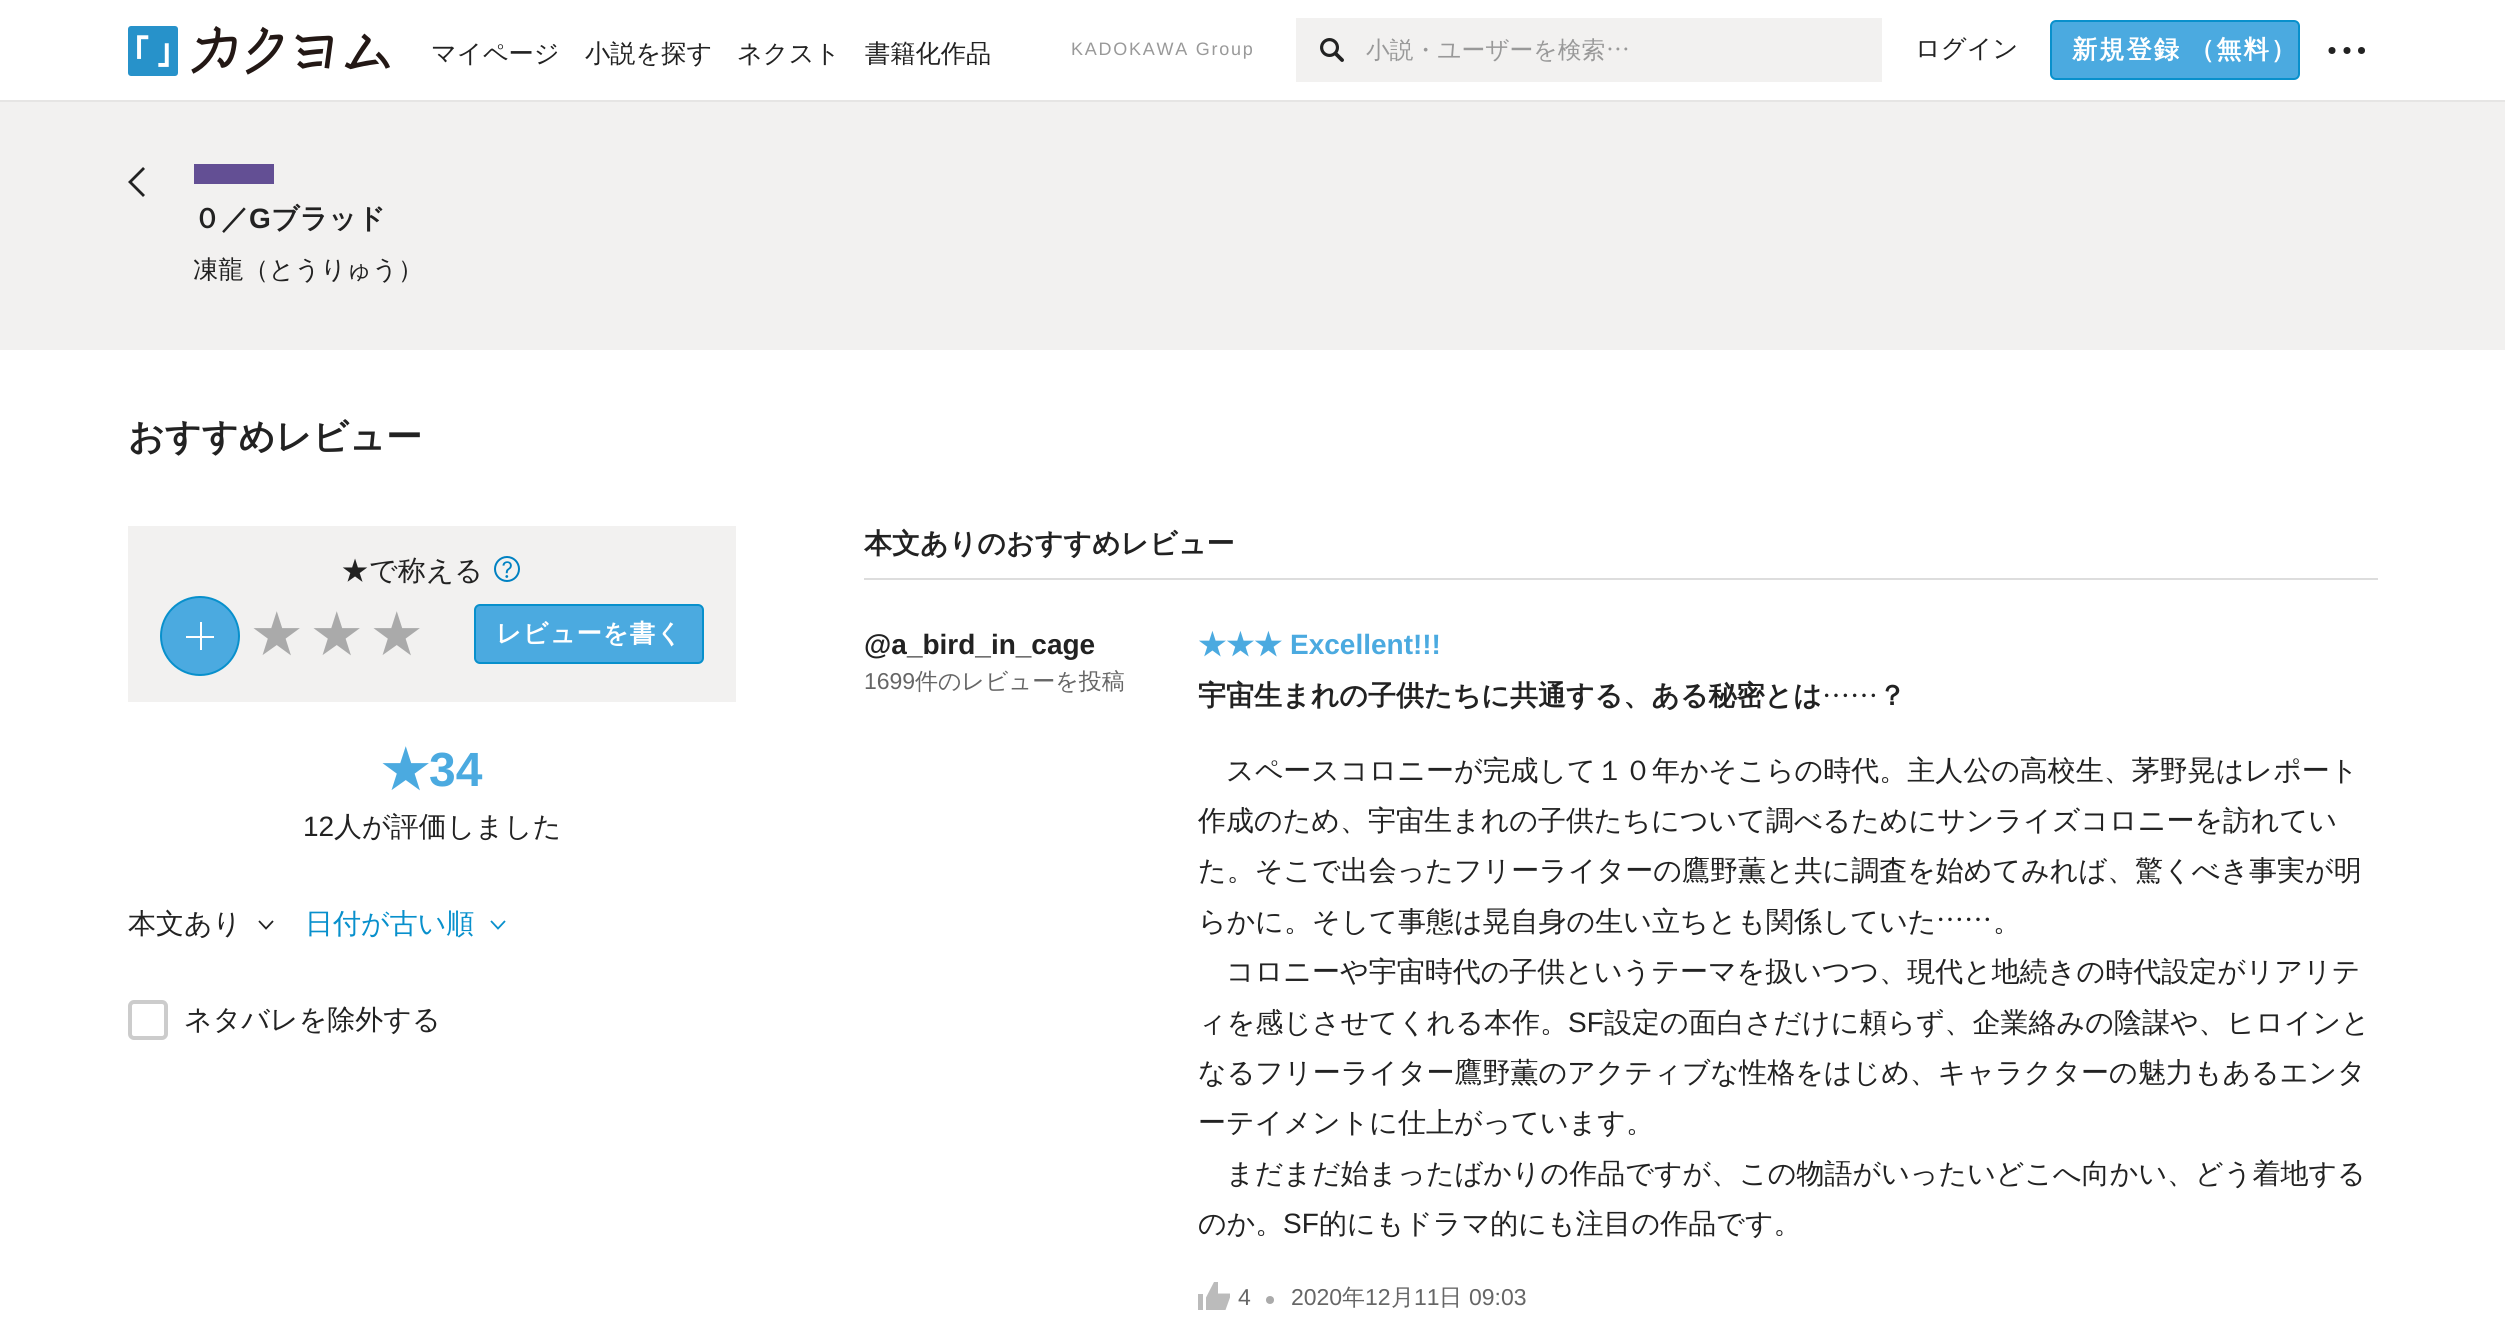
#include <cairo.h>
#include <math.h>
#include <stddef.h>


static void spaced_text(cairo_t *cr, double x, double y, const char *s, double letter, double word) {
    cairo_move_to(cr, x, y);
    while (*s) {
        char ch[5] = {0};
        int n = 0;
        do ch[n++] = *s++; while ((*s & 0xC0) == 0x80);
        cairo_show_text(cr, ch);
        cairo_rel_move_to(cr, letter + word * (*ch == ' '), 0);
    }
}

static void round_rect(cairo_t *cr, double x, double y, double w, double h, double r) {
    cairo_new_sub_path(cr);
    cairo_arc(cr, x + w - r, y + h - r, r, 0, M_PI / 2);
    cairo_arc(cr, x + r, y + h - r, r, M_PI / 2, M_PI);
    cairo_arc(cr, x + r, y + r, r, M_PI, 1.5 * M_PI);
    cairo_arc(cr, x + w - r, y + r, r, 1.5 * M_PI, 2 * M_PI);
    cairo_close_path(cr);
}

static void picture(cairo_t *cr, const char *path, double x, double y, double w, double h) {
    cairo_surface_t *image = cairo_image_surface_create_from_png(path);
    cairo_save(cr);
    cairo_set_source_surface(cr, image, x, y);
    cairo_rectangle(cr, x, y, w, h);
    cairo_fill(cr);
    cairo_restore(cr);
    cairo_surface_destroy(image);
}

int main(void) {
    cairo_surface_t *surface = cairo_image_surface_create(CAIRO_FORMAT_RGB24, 2505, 1320);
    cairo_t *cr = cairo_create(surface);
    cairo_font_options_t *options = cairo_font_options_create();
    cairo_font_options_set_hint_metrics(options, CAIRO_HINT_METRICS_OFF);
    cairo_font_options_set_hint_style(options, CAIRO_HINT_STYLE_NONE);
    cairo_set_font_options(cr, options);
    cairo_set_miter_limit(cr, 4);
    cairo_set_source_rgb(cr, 1, 1, 1);
    cairo_paint(cr);
    cairo_set_source_rgb(cr, 0.902, 0.898, 0.894);
    cairo_rectangle(cr, 0, 100, 2505, 2);
    cairo_fill(cr);
    picture(cr, "img1.png", 128, 26, 262, 50);
    cairo_select_font_face(cr, "WenQuanYi Zen Hei Medium", CAIRO_FONT_SLANT_NORMAL, CAIRO_FONT_WEIGHT_NORMAL);
    cairo_set_font_size(cr, 25.25);
    cairo_set_source_rgb(cr, 0.133, 0.133, 0.133);
    cairo_move_to(cr, 431, 62);
    cairo_show_text(cr, "マイページ");
    cairo_move_to(cr, 585, 62);
    cairo_show_text(cr, "小説を探す");
    cairo_move_to(cr, 737, 62);
    cairo_show_text(cr, "ネクスト");
    cairo_move_to(cr, 865, 62);
    cairo_show_text(cr, "書籍化作品");
    cairo_select_font_face(cr, "Liberation Sans", CAIRO_FONT_SLANT_NORMAL, CAIRO_FONT_WEIGHT_NORMAL);
    cairo_set_font_size(cr, 18);
    cairo_set_source_rgb(cr, 0.6, 0.6, 0.6);
    spaced_text(cr, 1071, 55, "KADOKAWA Group", 1.75, 0);
    cairo_set_source_rgb(cr, 0.949, 0.945, 0.941);
    cairo_rectangle(cr, 1296, 18, 586, 64);
    cairo_fill(cr);
    picture(cr, "img2.png", 1320, 38, 24, 24);
    cairo_select_font_face(cr, "WenQuanYi Zen Hei Medium", CAIRO_FONT_SLANT_NORMAL, CAIRO_FONT_WEIGHT_NORMAL);
    cairo_set_font_size(cr, 23.75);
    cairo_set_source_rgb(cr, 0.6, 0.6, 0.6);
    cairo_move_to(cr, 1366, 58);
    cairo_show_text(cr, "小説・ユーザーを検索");
    picture(cr, "img3.png", 1608, 47, 20, 4);
    cairo_set_font_size(cr, 25.25);
    cairo_set_source_rgb(cr, 0.133, 0.133, 0.133);
    cairo_move_to(cr, 1915, 57);
    cairo_show_text(cr, "ログイン");
    cairo_set_source_rgb(cr, 0.294, 0.667, 0.878);
    round_rect(cr, 2051, 21, 248, 58, 5);
    cairo_fill_preserve(cr);
    cairo_set_source_rgb(cr, 0.035, 0.565, 0.8);
    cairo_stroke(cr);
    cairo_select_font_face(cr, "WenQuanYi Zen Hei", CAIRO_FONT_SLANT_NORMAL, CAIRO_FONT_WEIGHT_BOLD);
    cairo_set_source_rgb(cr, 1, 1, 1);
    spaced_text(cr, 2072, 58, "新規登録", 2, 0);
    spaced_text(cr, 2189, 58, "（無料）", 2, 0);
    cairo_set_source_rgb(cr, 0.133, 0.133, 0.133);
    cairo_new_path(cr);
    cairo_arc(cr, 2332, 50.5, 3.5, 0, 2 * M_PI);
    cairo_fill(cr);
    cairo_arc(cr, 2347, 50.5, 3.5, 0, 2 * M_PI);
    cairo_fill(cr);
    cairo_arc(cr, 2361.5, 50.5, 3.5, 0, 2 * M_PI);
    cairo_fill(cr);
    cairo_set_source_rgb(cr, 0.949, 0.945, 0.941);
    cairo_rectangle(cr, 0, 102, 2505, 248);
    cairo_fill(cr);
    cairo_new_path(cr);
    cairo_move_to(cr, 144, 196);
    cairo_line_to(cr, 130, 182);
    cairo_line_to(cr, 144, 168);
    cairo_set_source_rgb(cr, 0.133, 0.133, 0.133);
    cairo_set_line_width(cr, 2.8);
    cairo_stroke(cr);
    cairo_set_source_rgb(cr, 0.388, 0.31, 0.58);
    cairo_rectangle(cr, 194, 164, 80, 20);
    cairo_fill(cr);
    cairo_set_font_size(cr, 28);
    cairo_set_source_rgb(cr, 0.133, 0.133, 0.133);
    cairo_move_to(cr, 193, 228);
    cairo_show_text(cr, "０／");
    cairo_select_font_face(cr, "Liberation Sans", CAIRO_FONT_SLANT_NORMAL, CAIRO_FONT_WEIGHT_BOLD);
    cairo_move_to(cr, 249, 228);
    cairo_show_text(cr, "G");
    cairo_select_font_face(cr, "WenQuanYi Zen Hei", CAIRO_FONT_SLANT_NORMAL, CAIRO_FONT_WEIGHT_BOLD);
    cairo_move_to(cr, 271, 228);
    cairo_show_text(cr, "ブラッド");
    cairo_select_font_face(cr, "WenQuanYi Zen Hei Medium", CAIRO_FONT_SLANT_NORMAL, CAIRO_FONT_WEIGHT_NORMAL);
    cairo_set_font_size(cr, 25.25);
    cairo_move_to(cr, 193, 278);
    cairo_show_text(cr, "凍龍（とうりゅう）");
    cairo_select_font_face(cr, "WenQuanYi Zen Hei", CAIRO_FONT_SLANT_NORMAL, CAIRO_FONT_WEIGHT_BOLD);
    cairo_set_font_size(cr, 36);
    cairo_move_to(cr, 128, 449);
    cairo_show_text(cr, "おすすめレビュー");
    cairo_set_source_rgb(cr, 0.949, 0.945, 0.941);
    cairo_rectangle(cr, 128, 526, 608, 176);
    cairo_fill(cr);
    cairo_select_font_face(cr, "WenQuanYi Zen Hei Medium", CAIRO_FONT_SLANT_NORMAL, CAIRO_FONT_WEIGHT_NORMAL);
    cairo_set_font_size(cr, 28);
    cairo_set_source_rgb(cr, 0.133, 0.133, 0.133);
    cairo_move_to(cr, 341, 580);
    cairo_show_text(cr, "★で称える");
    picture(cr, "img4.png", 494, 556, 26, 26);
    cairo_set_source_rgb(cr, 0.294, 0.667, 0.878);
    cairo_arc(cr, 200, 636, 39, 0, 2 * M_PI);
    cairo_fill_preserve(cr);
    cairo_set_source_rgb(cr, 0.035, 0.565, 0.8);
    cairo_set_line_width(cr, 2);
    cairo_stroke(cr);
    cairo_set_source_rgb(cr, 1, 1, 1);
    cairo_rectangle(cr, 186, 636, 28, 2);
    cairo_fill(cr);
    cairo_rectangle(cr, 200, 622, 2, 28);
    cairo_fill(cr);
    cairo_select_font_face(cr, "WenQuanYi Zen Hei", CAIRO_FONT_SLANT_NORMAL, CAIRO_FONT_WEIGHT_BOLD);
    cairo_set_font_size(cr, 48);
    cairo_set_source_rgb(cr, 0.667, 0.667, 0.667);
    cairo_move_to(cr, 252, 651);
    cairo_show_text(cr, "★");
    cairo_move_to(cr, 312, 651);
    cairo_show_text(cr, "★");
    cairo_move_to(cr, 372, 651);
    cairo_show_text(cr, "★");
    cairo_set_source_rgb(cr, 0.294, 0.667, 0.878);
    round_rect(cr, 475, 605, 228, 58, 5);
    cairo_fill_preserve(cr);
    cairo_set_source_rgb(cr, 0.035, 0.565, 0.8);
    cairo_stroke(cr);
    cairo_set_font_size(cr, 25.25);
    cairo_set_source_rgb(cr, 1, 1, 1);
    spaced_text(cr, 496, 642, "レビューを書く", 1, 0);
    cairo_set_font_size(cr, 48);
    cairo_set_source_rgb(cr, 0.294, 0.667, 0.878);
    cairo_move_to(cr, 381, 786);
    cairo_show_text(cr, "★");
    cairo_select_font_face(cr, "Liberation Sans", CAIRO_FONT_SLANT_NORMAL, CAIRO_FONT_WEIGHT_BOLD);
    cairo_move_to(cr, 429, 786);
    cairo_show_text(cr, "34");
    cairo_select_font_face(cr, "Liberation Sans", CAIRO_FONT_SLANT_NORMAL, CAIRO_FONT_WEIGHT_NORMAL);
    cairo_set_font_size(cr, 28);
    cairo_set_source_rgb(cr, 0.133, 0.133, 0.133);
    cairo_move_to(cr, 303, 836);
    cairo_show_text(cr, "12");
    cairo_select_font_face(cr, "WenQuanYi Zen Hei Medium", CAIRO_FONT_SLANT_NORMAL, CAIRO_FONT_WEIGHT_NORMAL);
    cairo_move_to(cr, 334, 836);
    cairo_show_text(cr, "人が評価しました");
    cairo_move_to(cr, 128, 933);
    cairo_show_text(cr, "本文あり");
    cairo_new_path(cr);
    cairo_move_to(cr, 273, 921);
    cairo_line_to(cr, 266, 928.5);
    cairo_line_to(cr, 259, 921);
    cairo_set_line_width(cr, 1.8);
    cairo_stroke(cr);
    cairo_set_source_rgb(cr, 0.035, 0.565, 0.8);
    cairo_move_to(cr, 305, 933);
    cairo_show_text(cr, "日付が古い順");
    cairo_new_path(cr);
    cairo_move_to(cr, 505, 921);
    cairo_line_to(cr, 498, 928.5);
    cairo_line_to(cr, 491, 921);
    cairo_stroke(cr);
    round_rect(cr, 130, 1002, 36, 36, 4);
    cairo_set_source_rgb(cr, 0.8, 0.8, 0.8);
    cairo_set_line_width(cr, 4);
    cairo_stroke(cr);
    cairo_set_source_rgb(cr, 0.133, 0.133, 0.133);
    cairo_move_to(cr, 184, 1029);
    cairo_show_text(cr, "ネタバレを除外する");
    cairo_set_source_rgb(cr, 0.867, 0.867, 0.867);
    cairo_rectangle(cr, 864, 578, 1514, 2);
    cairo_fill(cr);
    cairo_select_font_face(cr, "WenQuanYi Zen Hei", CAIRO_FONT_SLANT_NORMAL, CAIRO_FONT_WEIGHT_BOLD);
    cairo_set_source_rgb(cr, 0.133, 0.133, 0.133);
    cairo_move_to(cr, 864, 553);
    cairo_show_text(cr, "本文ありのおすすめレビュー");
    cairo_select_font_face(cr, "Liberation Sans", CAIRO_FONT_SLANT_NORMAL, CAIRO_FONT_WEIGHT_BOLD);
    cairo_move_to(cr, 864, 654);
    cairo_show_text(cr, "@a_bird_in_cage");
    cairo_select_font_face(cr, "Liberation Sans", CAIRO_FONT_SLANT_NORMAL, CAIRO_FONT_WEIGHT_NORMAL);
    cairo_set_font_size(cr, 23);
    cairo_set_source_rgb(cr, 0.4, 0.4, 0.4);
    cairo_move_to(cr, 864, 689);
    cairo_show_text(cr, "1699");
    cairo_select_font_face(cr, "WenQuanYi Zen Hei Medium", CAIRO_FONT_SLANT_NORMAL, CAIRO_FONT_WEIGHT_NORMAL);
    cairo_move_to(cr, 915, 689);
    cairo_show_text(cr, "件のレビューを投稿");
    cairo_select_font_face(cr, "WenQuanYi Zen Hei", CAIRO_FONT_SLANT_NORMAL, CAIRO_FONT_WEIGHT_BOLD);
    cairo_set_font_size(cr, 28);
    cairo_set_source_rgb(cr, 0.294, 0.667, 0.878);
    cairo_move_to(cr, 1198, 654);
    cairo_show_text(cr, "★★★");
    cairo_select_font_face(cr, "Liberation Sans", CAIRO_FONT_SLANT_NORMAL, CAIRO_FONT_WEIGHT_BOLD);
    cairo_move_to(cr, 1290, 654);
    cairo_show_text(cr, "Excellent!!!");
    cairo_select_font_face(cr, "WenQuanYi Zen Hei", CAIRO_FONT_SLANT_NORMAL, CAIRO_FONT_WEIGHT_BOLD);
    cairo_set_source_rgb(cr, 0.133, 0.133, 0.133);
    cairo_move_to(cr, 1198, 705);
    cairo_show_text(cr, "宇宙生まれの子供たちに共通する、ある秘密とは");
    picture(cr, "img5.png", 1824, 693, 52, 5);
    cairo_move_to(cr, 1878, 705);
    cairo_show_text(cr, "？");
    cairo_select_font_face(cr, "WenQuanYi Zen Hei Medium", CAIRO_FONT_SLANT_NORMAL, CAIRO_FONT_WEIGHT_NORMAL);
    cairo_move_to(cr, 1226, 780);
    cairo_show_text(cr, "スペースコロニーが完成して１０年かそこらの時代。主人公の高校生、茅野晃はレポート");
    cairo_move_to(cr, 1198, 830);
    cairo_show_text(cr, "作成のため、宇宙生まれの子供たちについて調べるためにサンライズコロニーを訪れてい");
    cairo_move_to(cr, 1198, 880);
    cairo_show_text(cr, "た。そこで出会ったフリーライターの鷹野薫と共に調査を始めてみれば、驚くべき事実が明");
    cairo_move_to(cr, 1198, 931);
    cairo_show_text(cr, "らかに。そして事態は晃自身の生い立ちとも関係していた");
    picture(cr, "img5.png", 1938, 917, 52, 5);
    cairo_move_to(cr, 1993, 931);
    cairo_show_text(cr, "。");
    cairo_move_to(cr, 1226, 981);
    cairo_show_text(cr, "コロニーや宇宙時代の子供というテーマを扱いつつ、現代と地続きの時代設定がリアリテ");
    cairo_move_to(cr, 1198, 1032);
    cairo_show_text(cr, "ィを感じさせてくれる本作。");
    cairo_select_font_face(cr, "Liberation Sans", CAIRO_FONT_SLANT_NORMAL, CAIRO_FONT_WEIGHT_NORMAL);
    cairo_move_to(cr, 1568, 1032);
    cairo_show_text(cr, "SF");
    cairo_select_font_face(cr, "WenQuanYi Zen Hei Medium", CAIRO_FONT_SLANT_NORMAL, CAIRO_FONT_WEIGHT_NORMAL);
    cairo_move_to(cr, 1604, 1032);
    cairo_show_text(cr, "設定の面白さだけに頼らず、企業絡みの陰謀や、ヒロインと");
    cairo_move_to(cr, 1198, 1082);
    cairo_show_text(cr, "なるフリーライター鷹野薫のアクティブな性格をはじめ、キャラクターの魅力もあるエンタ");
    cairo_move_to(cr, 1198, 1132);
    cairo_show_text(cr, "ーテイメントに仕上がっています。");
    cairo_move_to(cr, 1226, 1183);
    cairo_show_text(cr, "まだまだ始まったばかりの作品ですが、この物語がいったいどこへ向かい、どう着地する");
    cairo_move_to(cr, 1198, 1233);
    cairo_show_text(cr, "のか。");
    cairo_select_font_face(cr, "Liberation Sans", CAIRO_FONT_SLANT_NORMAL, CAIRO_FONT_WEIGHT_NORMAL);
    cairo_move_to(cr, 1283, 1233);
    cairo_show_text(cr, "SF");
    cairo_select_font_face(cr, "WenQuanYi Zen Hei Medium", CAIRO_FONT_SLANT_NORMAL, CAIRO_FONT_WEIGHT_NORMAL);
    cairo_move_to(cr, 1319, 1233);
    cairo_show_text(cr, "的にもドラマ的にも注目の作品です。");
    cairo_set_source_rgb(cr, 0.733, 0.733, 0.733);
    cairo_rectangle(cr, 1198, 1294, 5, 16);
    cairo_fill(cr);
    cairo_new_path(cr);
    cairo_move_to(cr, 1230, 1297.5);
    cairo_line_to(cr, 1230, 1293.5);
    cairo_line_to(cr, 1218, 1293.5);
    cairo_line_to(cr, 1218, 1282);
    cairo_line_to(cr, 1214, 1282);
    cairo_line_to(cr, 1206, 1297.5);
    cairo_line_to(cr, 1206, 1310);
    cairo_line_to(cr, 1225.5, 1310);
    cairo_close_path(cr);
    cairo_fill(cr);
    cairo_select_font_face(cr, "Liberation Sans", CAIRO_FONT_SLANT_NORMAL, CAIRO_FONT_WEIGHT_NORMAL);
    cairo_set_font_size(cr, 23);
    cairo_set_source_rgb(cr, 0.4, 0.4, 0.4);
    cairo_move_to(cr, 1238, 1305);
    cairo_show_text(cr, "4");
    cairo_set_source_rgb(cr, 0.667, 0.667, 0.667);
    cairo_new_path(cr);
    cairo_arc(cr, 1270, 1300, 4, 0, 2 * M_PI);
    cairo_fill(cr);
    cairo_set_source_rgb(cr, 0.4, 0.4, 0.4);
    cairo_move_to(cr, 1291, 1305);
    cairo_show_text(cr, "2020");
    cairo_select_font_face(cr, "WenQuanYi Zen Hei Medium", CAIRO_FONT_SLANT_NORMAL, CAIRO_FONT_WEIGHT_NORMAL);
    cairo_move_to(cr, 1342, 1305);
    cairo_show_text(cr, "年");
    cairo_select_font_face(cr, "Liberation Sans", CAIRO_FONT_SLANT_NORMAL, CAIRO_FONT_WEIGHT_NORMAL);
    cairo_move_to(cr, 1365, 1305);
    cairo_show_text(cr, "12");
    cairo_select_font_face(cr, "WenQuanYi Zen Hei Medium", CAIRO_FONT_SLANT_NORMAL, CAIRO_FONT_WEIGHT_NORMAL);
    cairo_move_to(cr, 1391, 1305);
    cairo_show_text(cr, "月");
    cairo_select_font_face(cr, "Liberation Sans", CAIRO_FONT_SLANT_NORMAL, CAIRO_FONT_WEIGHT_NORMAL);
    cairo_move_to(cr, 1414, 1305);
    cairo_show_text(cr, "11");
    cairo_select_font_face(cr, "WenQuanYi Zen Hei Medium", CAIRO_FONT_SLANT_NORMAL, CAIRO_FONT_WEIGHT_NORMAL);
    cairo_move_to(cr, 1439, 1305);
    cairo_show_text(cr, "日");
    cairo_select_font_face(cr, "Liberation Sans", CAIRO_FONT_SLANT_NORMAL, CAIRO_FONT_WEIGHT_NORMAL);
    cairo_move_to(cr, 1469, 1305);
    cairo_show_text(cr, "09:03");
    cairo_surface_write_to_png(surface, "page.png");
    cairo_font_options_destroy(options);
    cairo_destroy(cr);
    cairo_surface_destroy(surface);
    return 0;
}
